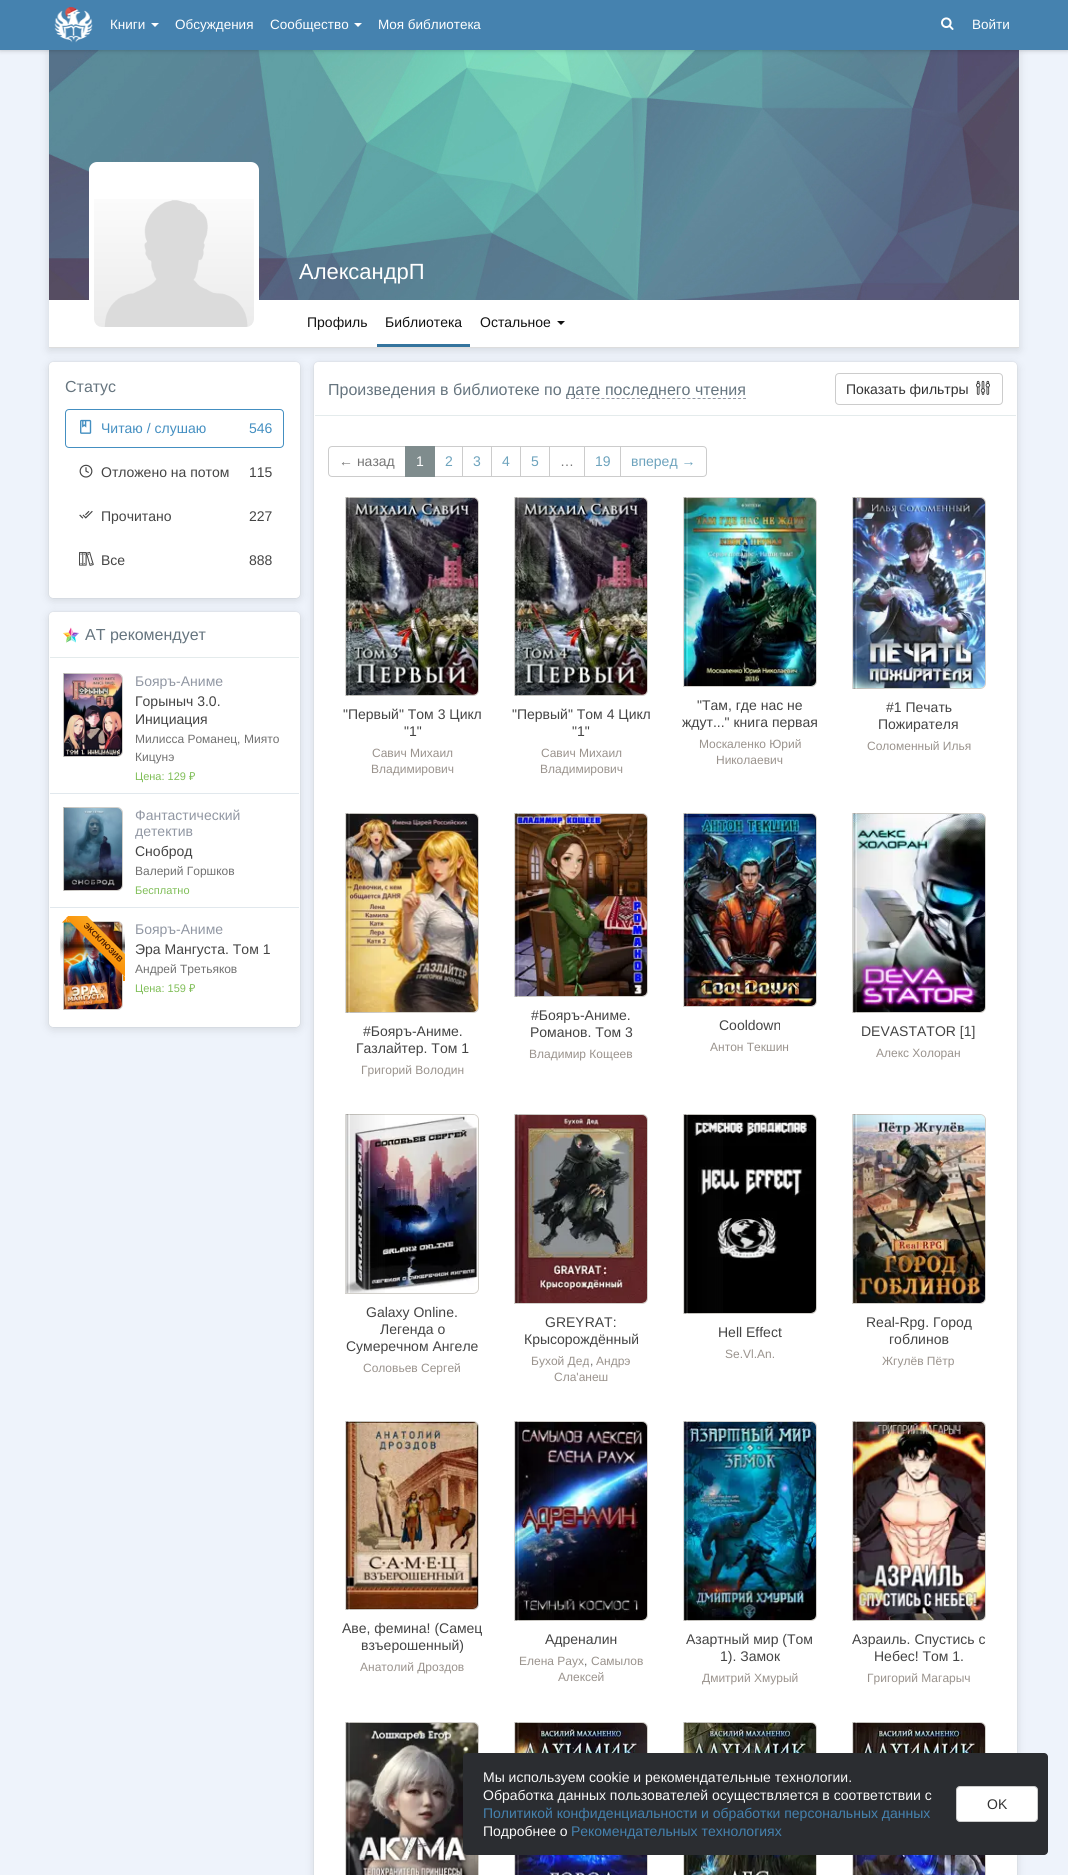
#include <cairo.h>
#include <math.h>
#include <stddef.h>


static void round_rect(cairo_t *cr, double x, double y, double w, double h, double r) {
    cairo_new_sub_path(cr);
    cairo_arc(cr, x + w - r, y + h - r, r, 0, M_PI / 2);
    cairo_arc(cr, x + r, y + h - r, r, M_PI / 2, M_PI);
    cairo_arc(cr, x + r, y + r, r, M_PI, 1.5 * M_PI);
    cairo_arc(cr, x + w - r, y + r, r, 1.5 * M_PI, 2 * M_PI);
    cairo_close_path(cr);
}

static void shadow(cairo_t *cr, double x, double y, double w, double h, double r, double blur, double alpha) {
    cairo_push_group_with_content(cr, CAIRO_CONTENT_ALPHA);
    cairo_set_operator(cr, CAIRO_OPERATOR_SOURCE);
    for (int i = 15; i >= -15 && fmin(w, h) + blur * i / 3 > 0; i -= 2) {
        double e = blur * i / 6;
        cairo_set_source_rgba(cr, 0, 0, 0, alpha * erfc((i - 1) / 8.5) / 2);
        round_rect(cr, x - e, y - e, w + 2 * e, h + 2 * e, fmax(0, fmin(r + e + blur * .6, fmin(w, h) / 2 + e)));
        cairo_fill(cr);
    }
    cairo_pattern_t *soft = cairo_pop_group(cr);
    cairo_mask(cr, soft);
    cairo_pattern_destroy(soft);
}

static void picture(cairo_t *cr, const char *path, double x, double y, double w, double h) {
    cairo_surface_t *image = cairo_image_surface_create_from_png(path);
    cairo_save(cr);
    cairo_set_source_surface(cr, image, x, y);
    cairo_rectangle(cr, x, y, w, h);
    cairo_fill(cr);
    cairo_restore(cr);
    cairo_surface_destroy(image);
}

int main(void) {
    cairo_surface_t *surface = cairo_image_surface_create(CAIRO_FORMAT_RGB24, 1068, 1875);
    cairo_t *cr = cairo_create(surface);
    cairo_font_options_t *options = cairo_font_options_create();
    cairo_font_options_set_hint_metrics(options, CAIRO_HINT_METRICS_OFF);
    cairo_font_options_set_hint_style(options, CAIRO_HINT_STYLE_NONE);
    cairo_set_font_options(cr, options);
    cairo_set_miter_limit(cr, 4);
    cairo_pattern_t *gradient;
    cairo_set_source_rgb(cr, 0.933, 0.953, 0.984);
    cairo_paint(cr);
    cairo_set_source_rgb(cr, 0, 0, 0);
    shadow(cr, 49, 52, 970, 298, 0, 5, 0.12);
    picture(cr, "img3.png", 49, 50, 970, 250);
    shadow(cr, 0, 0, 1068, 50, 0, 2.5, 0.25);
    cairo_set_source_rgb(cr, 0.271, 0.51, 0.686);
    cairo_rectangle(cr, 0, 0, 1068, 50);
    cairo_fill(cr);
    picture(cr, "img1.png", 54, 7, 39, 36);
    cairo_select_font_face(cr, "Liberation Sans", CAIRO_FONT_SLANT_NORMAL, CAIRO_FONT_WEIGHT_NORMAL);
    cairo_set_font_size(cr, 13.5);
    cairo_set_source_rgb(cr, 1, 1, 1);
    cairo_move_to(cr, 110, 29);
    cairo_show_text(cr, "Книги");
    cairo_new_path(cr);
    cairo_move_to(cr, 151, 23);
    cairo_line_to(cr, 159, 23);
    cairo_line_to(cr, 155, 27);
    cairo_close_path(cr);
    cairo_fill(cr);
    cairo_move_to(cr, 175, 29);
    cairo_show_text(cr, "Обсуждения");
    cairo_move_to(cr, 270, 29);
    cairo_show_text(cr, "Сообщество");
    cairo_new_path(cr);
    cairo_move_to(cr, 354, 23);
    cairo_line_to(cr, 362, 23);
    cairo_line_to(cr, 358, 27);
    cairo_close_path(cr);
    cairo_fill(cr);
    cairo_move_to(cr, 378, 29);
    cairo_show_text(cr, "Моя библиотека");
    picture(cr, "img2.png", 941, 17, 13, 13);
    cairo_move_to(cr, 972, 29);
    cairo_show_text(cr, "Войти");
    cairo_set_font_size(cr, 22);
    cairo_move_to(cr, 299, 279);
    cairo_show_text(cr, "АлександрП");
    cairo_set_source_rgb(cr, 0.867, 0.867, 0.867);
    cairo_rectangle(cr, 49, 347, 970, 1);
    cairo_fill(cr);
    cairo_set_source_rgb(cr, 1, 1, 1);
    cairo_rectangle(cr, 49, 300, 970, 47);
    cairo_fill(cr);
    round_rect(cr, 91.5, 164.5, 165, 165, 5.5);
    cairo_fill_preserve(cr);
    cairo_set_line_width(cr, 5);
    cairo_stroke(cr);
    picture(cr, "img4.png", 94, 199, 160, 128);
    cairo_set_font_size(cr, 14);
    cairo_set_source_rgb(cr, 0.071, 0.071, 0.071);
    cairo_move_to(cr, 307, 327);
    cairo_show_text(cr, "Профиль");
    cairo_set_source_rgb(cr, 0.204, 0.455, 0.62);
    cairo_rectangle(cr, 377, 344, 93, 3);
    cairo_fill(cr);
    cairo_set_source_rgb(cr, 0.071, 0.071, 0.071);
    cairo_move_to(cr, 385, 327);
    cairo_show_text(cr, "Библиотека");
    cairo_move_to(cr, 480, 327);
    cairo_show_text(cr, "Остальное");
    cairo_new_path(cr);
    cairo_move_to(cr, 557, 321);
    cairo_line_to(cr, 565, 321);
    cairo_line_to(cr, 561, 325);
    cairo_close_path(cr);
    cairo_fill(cr);
    cairo_set_source_rgb(cr, 0, 0, 0);
    shadow(cr, 314, 364, 703, 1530, 4, 5, 0.12);
    shadow(cr, 314, 362, 703, 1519, 4, 0.5, 0.12);
    cairo_set_source_rgb(cr, 1, 1, 1);
    round_rect(cr, 314, 362, 703, 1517, 4);
    cairo_fill(cr);
    cairo_set_source_rgb(cr, 0, 0, 0);
    shadow(cr, 49, 364, 251, 236, 4, 5, 0.12);
    shadow(cr, 49, 362, 251, 236, 4, 0.5, 0.12);
    cairo_set_source_rgb(cr, 1, 1, 1);
    round_rect(cr, 49, 362, 251, 236, 4);
    cairo_fill(cr);
    cairo_set_font_size(cr, 16);
    cairo_set_source_rgb(cr, 0.4, 0.459, 0.498);
    cairo_move_to(cr, 65, 392);
    cairo_show_text(cr, "Статус");
    round_rect(cr, 65.5, 409.5, 218, 38, 3.5);
    cairo_set_source_rgb(cr, 0.267, 0.561, 0.757);
    cairo_set_line_width(cr, 1);
    cairo_stroke(cr);
    picture(cr, "img5.png", 80, 419, 12, 15);
    cairo_set_font_size(cr, 14);
    cairo_move_to(cr, 101, 433);
    cairo_show_text(cr, "Читаю / слушаю");
    cairo_move_to(cr, 249, 433);
    cairo_show_text(cr, "546");
    picture(cr, "img6.png", 79, 464, 14, 14);
    cairo_set_source_rgb(cr, 0.267, 0.267, 0.267);
    cairo_move_to(cr, 101, 477);
    cairo_show_text(cr, "Отложено на потом");
    cairo_move_to(cr, 249, 477);
    cairo_show_text(cr, "115");
    picture(cr, "img7.png", 79, 510, 14, 9);
    cairo_move_to(cr, 101, 521);
    cairo_show_text(cr, "Прочитано");
    cairo_move_to(cr, 249, 521);
    cairo_show_text(cr, "227");
    picture(cr, "img8.png", 79, 551, 15, 15);
    cairo_move_to(cr, 101, 565);
    cairo_show_text(cr, "Все");
    cairo_move_to(cr, 249, 565);
    cairo_show_text(cr, "888");
    cairo_set_source_rgb(cr, 0, 0, 0);
    shadow(cr, 49, 614, 251, 415, 4, 5, 0.12);
    shadow(cr, 49, 612, 251, 415, 4, 0.5, 0.12);
    cairo_set_source_rgb(cr, 1, 1, 1);
    round_rect(cr, 49, 612, 251, 415, 4);
    cairo_fill(cr);
    cairo_set_source_rgb(cr, 0.894, 0.918, 0.925);
    cairo_rectangle(cr, 50, 657, 249, 1);
    cairo_fill(cr);
    picture(cr, "img9.png", 66, 636, 5, 7);
    cairo_set_source_rgb(cr, 1, 0.596, 0.067);
    cairo_new_path(cr);
    cairo_move_to(cr, 67, 637);
    cairo_line_to(cr, 71, 636);
    cairo_line_to(cr, 63, 633);
    cairo_close_path(cr);
    cairo_fill(cr);
    cairo_set_source_rgb(cr, 0.918, 0.204, 0.545);
    cairo_new_path(cr);
    cairo_move_to(cr, 71, 636);
    cairo_line_to(cr, 71, 627.5);
    cairo_line_to(cr, 68.5, 632.5);
    cairo_close_path(cr);
    cairo_fill(cr);
    cairo_set_source_rgb(cr, 0.576, 0.243, 0.773);
    cairo_new_path(cr);
    cairo_move_to(cr, 79, 633);
    cairo_line_to(cr, 73.5, 632.5);
    cairo_line_to(cr, 71, 636);
    cairo_close_path(cr);
    cairo_fill(cr);
    cairo_set_source_rgb(cr, 0.969, 0.682, 0.82);
    cairo_new_path(cr);
    cairo_move_to(cr, 73.5, 632.5);
    cairo_line_to(cr, 71, 627.5);
    cairo_line_to(cr, 71, 636);
    cairo_close_path(cr);
    cairo_fill(cr);
    cairo_set_source_rgb(cr, 1, 0.855, 0.267);
    cairo_new_path(cr);
    cairo_move_to(cr, 68.5, 632.5);
    cairo_line_to(cr, 63, 633);
    cairo_line_to(cr, 71, 636);
    cairo_close_path(cr);
    cairo_fill(cr);
    cairo_set_source_rgb(cr, 0, 0.843, 0.875);
    cairo_new_path(cr);
    cairo_move_to(cr, 75, 637);
    cairo_line_to(cr, 71, 636);
    cairo_line_to(cr, 76, 642.5);
    cairo_close_path(cr);
    cairo_fill(cr);
    cairo_set_source_rgb(cr, 0.6, 0.937, 0.949);
    cairo_new_path(cr);
    cairo_move_to(cr, 71, 640);
    cairo_line_to(cr, 76, 642.5);
    cairo_line_to(cr, 71, 636);
    cairo_close_path(cr);
    cairo_fill(cr);
    cairo_set_source_rgb(cr, 0.486, 0.518, 0.91);
    cairo_new_path(cr);
    cairo_move_to(cr, 75, 637);
    cairo_line_to(cr, 79, 633);
    cairo_line_to(cr, 71, 636);
    cairo_close_path(cr);
    cairo_fill(cr);
    cairo_set_source_rgb(cr, 0.569, 0.863, 0.353);
    cairo_new_path(cr);
    cairo_move_to(cr, 67, 637);
    cairo_line_to(cr, 66, 642.5);
    cairo_line_to(cr, 71, 636);
    cairo_close_path(cr);
    cairo_fill(cr);
    cairo_set_font_size(cr, 16);
    cairo_set_source_rgb(cr, 0.4, 0.459, 0.498);
    cairo_move_to(cr, 85, 640);
    cairo_show_text(cr, "AT рекомендует");
    cairo_set_source_rgb(cr, 0.882, 0.91, 0.929);
    cairo_rectangle(cr, 50, 793, 249, 1);
    cairo_fill(cr);
    cairo_set_source_rgb(cr, 0.965, 0.957, 0.933);
    cairo_new_path(cr);
    cairo_move_to(cr, 63, 673);
    cairo_line_to(cr, 117, 673);
    cairo_curve_to(cr, 120.5, 673, 123, 675.5, 123, 679);
    cairo_line_to(cr, 123, 751);
    cairo_curve_to(cr, 123, 754.5, 120.5, 757, 117, 757);
    cairo_line_to(cr, 63, 757);
    cairo_close_path(cr);
    cairo_fill(cr);
    cairo_new_path(cr);
    cairo_move_to(cr, 63.5, 673.5);
    cairo_line_to(cr, 117, 673.5);
    cairo_curve_to(cr, 120, 673.5, 122.5, 676, 122.5, 679);
    cairo_line_to(cr, 122.5, 751);
    cairo_curve_to(cr, 122.5, 754, 120, 756.5, 117, 756.5);
    cairo_line_to(cr, 63.5, 756.5);
    cairo_close_path(cr);
    cairo_set_source_rgba(cr, 0, 0, 0, 0.15);
    cairo_stroke(cr);
    picture(cr, "img10.png", 64, 674, 58, 82);
    picture(cr, "img11.png", 63, 673, 18, 84);
    cairo_set_font_size(cr, 14);
    cairo_set_source_rgb(cr, 0.569, 0.592, 0.639);
    cairo_move_to(cr, 135, 686);
    cairo_show_text(cr, "Бояръ-Аниме");
    cairo_set_source_rgb(cr, 0.267, 0.267, 0.267);
    cairo_move_to(cr, 135, 706);
    cairo_show_text(cr, "Горыныч 3.0.");
    cairo_move_to(cr, 135, 724);
    cairo_show_text(cr, "Инициация");
    cairo_set_font_size(cr, 12);
    cairo_set_source_rgb(cr, 0.443, 0.443, 0.443);
    cairo_move_to(cr, 135, 743);
    cairo_show_text(cr, "Милисса Романец");
    cairo_set_source_rgb(cr, 0.396, 0.396, 0.396);
    cairo_move_to(cr, 237, 743);
    cairo_show_text(cr, ",");
    cairo_set_source_rgb(cr, 0.443, 0.443, 0.443);
    cairo_move_to(cr, 244, 743);
    cairo_show_text(cr, "Миято");
    cairo_move_to(cr, 135, 761);
    cairo_show_text(cr, "Кицунэ");
    cairo_set_font_size(cr, 11);
    cairo_set_source_rgb(cr, 0.502, 0.745, 0.345);
    cairo_move_to(cr, 135, 780);
    cairo_show_text(cr, "Цена: 129");
    cairo_select_font_face(cr, "Noto Sans", CAIRO_FONT_SLANT_NORMAL, CAIRO_FONT_WEIGHT_NORMAL);
    cairo_move_to(cr, 189, 780);
    cairo_show_text(cr, "₽");
    cairo_set_source_rgb(cr, 0.882, 0.91, 0.929);
    cairo_rectangle(cr, 50, 907, 249, 1);
    cairo_fill(cr);
    cairo_set_source_rgb(cr, 0.965, 0.957, 0.933);
    cairo_new_path(cr);
    cairo_move_to(cr, 63, 807);
    cairo_line_to(cr, 117, 807);
    cairo_curve_to(cr, 120.5, 807, 123, 809.5, 123, 813);
    cairo_line_to(cr, 123, 885);
    cairo_curve_to(cr, 123, 888.5, 120.5, 891, 117, 891);
    cairo_line_to(cr, 63, 891);
    cairo_close_path(cr);
    cairo_fill(cr);
    cairo_new_path(cr);
    cairo_move_to(cr, 63.5, 807.5);
    cairo_line_to(cr, 117, 807.5);
    cairo_curve_to(cr, 120, 807.5, 122.5, 810, 122.5, 813);
    cairo_line_to(cr, 122.5, 885);
    cairo_curve_to(cr, 122.5, 888, 120, 890.5, 117, 890.5);
    cairo_line_to(cr, 63.5, 890.5);
    cairo_close_path(cr);
    cairo_set_source_rgba(cr, 0, 0, 0, 0.15);
    cairo_stroke(cr);
    picture(cr, "img12.png", 64, 808, 58, 82);
    picture(cr, "img13.png", 63, 807, 16, 84);
    cairo_select_font_face(cr, "Liberation Sans", CAIRO_FONT_SLANT_NORMAL, CAIRO_FONT_WEIGHT_NORMAL);
    cairo_set_font_size(cr, 14);
    cairo_set_source_rgb(cr, 0.569, 0.592, 0.639);
    cairo_move_to(cr, 135, 820);
    cairo_show_text(cr, "Фантастический");
    cairo_move_to(cr, 135, 836);
    cairo_show_text(cr, "детектив");
    cairo_set_source_rgb(cr, 0.267, 0.267, 0.267);
    cairo_move_to(cr, 135, 856);
    cairo_show_text(cr, "Сноброд");
    cairo_set_font_size(cr, 12);
    cairo_set_source_rgb(cr, 0.443, 0.443, 0.443);
    cairo_move_to(cr, 135, 875);
    cairo_show_text(cr, "Валерий Горшков");
    cairo_set_font_size(cr, 11);
    cairo_set_source_rgb(cr, 0.502, 0.745, 0.345);
    cairo_move_to(cr, 135, 894);
    cairo_show_text(cr, "Бесплатно");
    cairo_set_source_rgb(cr, 0.965, 0.957, 0.933);
    cairo_new_path(cr);
    cairo_move_to(cr, 63, 921);
    cairo_line_to(cr, 117, 921);
    cairo_curve_to(cr, 120.5, 921, 123, 923.5, 123, 927);
    cairo_line_to(cr, 123, 1004);
    cairo_curve_to(cr, 123, 1007.5, 120.5, 1010, 117, 1010);
    cairo_line_to(cr, 63, 1010);
    cairo_close_path(cr);
    cairo_fill(cr);
    cairo_new_path(cr);
    cairo_move_to(cr, 63.5, 921.5);
    cairo_line_to(cr, 117, 921.5);
    cairo_curve_to(cr, 120, 921.5, 122.5, 924, 122.5, 927);
    cairo_line_to(cr, 122.5, 1004);
    cairo_curve_to(cr, 122.5, 1007, 120, 1009.5, 117, 1009.5);
    cairo_line_to(cr, 63.5, 1009.5);
    cairo_close_path(cr);
    cairo_set_source_rgba(cr, 0, 0, 0, 0.15);
    cairo_stroke(cr);
    picture(cr, "img14.png", 64, 922, 58, 87);
    picture(cr, "img15.png", 63, 921, 19, 89);
    cairo_save(cr);
    cairo_rectangle(cr, 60, 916, 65, 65);
    cairo_clip(cr);
    cairo_set_source_rgb(cr, 0, 0, 0);
    shadow(cr, 65, 943, 76, 6, 0, 5, 1);
    cairo_restore(cr);
    cairo_save(cr);
    cairo_rectangle(cr, 60, 916, 65, 65);
    cairo_clip(cr);
    gradient = cairo_pattern_create_linear(108, 937, 97, 949);
    cairo_pattern_add_color_stop_rgba(gradient, 0, 0.98, 0.651, 0.118, 1);
    cairo_pattern_add_color_stop_rgba(gradient, 1, 0.98, 0.569, 0.031, 1);
    cairo_set_source(cr, gradient);
    cairo_pattern_destroy(gradient);
    cairo_new_path(cr);
    cairo_move_to(cr, 78, 907);
    cairo_line_to(cr, 139, 968);
    cairo_line_to(cr, 127, 979);
    cairo_line_to(cr, 66, 918);
    cairo_close_path(cr);
    cairo_fill(cr);
    cairo_restore(cr);
    cairo_set_source_rgb(cr, 0.98, 0.569, 0.031);
    cairo_new_path(cr);
    cairo_move_to(cr, 66.5, 918);
    cairo_line_to(cr, 70.5, 922.5);
    cairo_line_to(cr, 66.5, 922.5);
    cairo_close_path(cr);
    cairo_fill(cr);
    cairo_new_path(cr);
    cairo_move_to(cr, 62, 922.5);
    cairo_line_to(cr, 66.5, 918);
    cairo_line_to(cr, 66.5, 922.5);
    cairo_close_path(cr);
    cairo_fill(cr);
    cairo_select_font_face(cr, "Liberation Sans", CAIRO_FONT_SLANT_NORMAL, CAIRO_FONT_WEIGHT_BOLD);
    cairo_set_font_size(cr, 8);
    cairo_set_source_rgb(cr, 0.329, 0.122, 0);
    cairo_save(cr);
    cairo_translate(cr, 83, 926);
    cairo_rotate(cr, 45 * M_PI / 180);
    cairo_move_to(cr, 0, 0);
    cairo_show_text(cr, "ЭКСКЛЮЗИВ");
    cairo_restore(cr);
    cairo_save(cr);
    cairo_rectangle(cr, 60, 916, 65, 65);
    cairo_clip(cr);
    cairo_set_source_rgb(cr, 0.98, 0.569, 0.031);
    cairo_new_path(cr);
    cairo_move_to(cr, 123, 975);
    cairo_line_to(cr, 127, 979);
    cairo_line_to(cr, 123, 979);
    cairo_close_path(cr);
    cairo_move_to(cr, 127, 979);
    cairo_line_to(cr, 123, 983.5);
    cairo_line_to(cr, 123, 979);
    cairo_close_path(cr);
    cairo_fill(cr);
    cairo_restore(cr);
    cairo_select_font_face(cr, "Liberation Sans", CAIRO_FONT_SLANT_NORMAL, CAIRO_FONT_WEIGHT_NORMAL);
    cairo_set_font_size(cr, 14);
    cairo_set_source_rgb(cr, 0.569, 0.592, 0.639);
    cairo_move_to(cr, 135, 934);
    cairo_show_text(cr, "Бояръ-Аниме");
    cairo_set_source_rgb(cr, 0.267, 0.267, 0.267);
    cairo_move_to(cr, 135, 954);
    cairo_show_text(cr, "Эра Мангуста. Том 1");
    cairo_set_font_size(cr, 12);
    cairo_set_source_rgb(cr, 0.443, 0.443, 0.443);
    cairo_move_to(cr, 135, 973);
    cairo_show_text(cr, "Андрей Третьяков");
    cairo_set_font_size(cr, 11);
    cairo_set_source_rgb(cr, 0.502, 0.745, 0.345);
    cairo_move_to(cr, 135, 992);
    cairo_show_text(cr, "Цена: 159");
    cairo_select_font_face(cr, "Noto Sans", CAIRO_FONT_SLANT_NORMAL, CAIRO_FONT_WEIGHT_NORMAL);
    cairo_move_to(cr, 189, 992);
    cairo_show_text(cr, "₽");
    cairo_set_source_rgb(cr, 0.894, 0.918, 0.925);
    cairo_rectangle(cr, 315, 415, 701, 1);
    cairo_fill(cr);
    cairo_select_font_face(cr, "Liberation Sans", CAIRO_FONT_SLANT_NORMAL, CAIRO_FONT_WEIGHT_NORMAL);
    cairo_set_font_size(cr, 16);
    cairo_set_source_rgb(cr, 0.4, 0.459, 0.498);
    cairo_move_to(cr, 328, 395);
    cairo_show_text(cr, "Произведения в библиотеке по");
    cairo_new_path(cr);
    cairo_move_to(cr, 566, 398.5);
    cairo_line_to(cr, 746, 398.5);
    cairo_set_source_rgb(cr, 0.569, 0.592, 0.639);
    cairo_set_dash(cr, (double[]){3, 2.06}, 2, 0);
    cairo_stroke(cr);
    cairo_set_source_rgb(cr, 0.4, 0.459, 0.498);
    cairo_move_to(cr, 566, 395);
    cairo_show_text(cr, "дате последнего чтения");
    round_rect(cr, 835.5, 373.5, 167, 31, 3.5);
    cairo_set_source_rgb(cr, 0.8, 0.8, 0.8);
    cairo_set_dash(cr, NULL, 0, 0);
    cairo_stroke(cr);
    cairo_set_font_size(cr, 14);
    cairo_set_source_rgb(cr, 0.2, 0.2, 0.2);
    cairo_move_to(cr, 846, 394);
    cairo_show_text(cr, "Показать фильтры");
    picture(cr, "img16.png", 976, 380, 14, 15);
    cairo_new_path(cr);
    cairo_move_to(cr, 332, 446.5);
    cairo_line_to(cr, 405.5, 446.5);
    cairo_line_to(cr, 405.5, 476.5);
    cairo_line_to(cr, 332, 476.5);
    cairo_curve_to(cr, 330, 476.5, 328.5, 475, 328.5, 473);
    cairo_line_to(cr, 328.5, 450);
    cairo_curve_to(cr, 328.5, 448, 330, 446.5, 332, 446.5);
    cairo_close_path(cr);
    cairo_set_source_rgb(cr, 0.8, 0.8, 0.8);
    cairo_stroke(cr);
    cairo_set_source_rgb(cr, 0.467, 0.467, 0.467);
    cairo_move_to(cr, 339, 466);
    cairo_show_text(cr, "← назад");
    cairo_rectangle(cr, 434.5, 446.5, 28, 30);
    cairo_set_source_rgb(cr, 0.8, 0.8, 0.8);
    cairo_stroke(cr);
    cairo_set_source_rgb(cr, 0.498, 0.549, 0.553);
    cairo_rectangle(cr, 405, 446, 30, 31);
    cairo_fill(cr);
    cairo_set_source_rgb(cr, 1, 1, 1);
    cairo_move_to(cr, 416, 466);
    cairo_show_text(cr, "1");
    cairo_set_source_rgb(cr, 0.427, 0.639, 0.741);
    cairo_move_to(cr, 445, 466);
    cairo_show_text(cr, "2");
    cairo_rectangle(cr, 462.5, 446.5, 29, 30);
    cairo_set_source_rgb(cr, 0.8, 0.8, 0.8);
    cairo_stroke(cr);
    cairo_set_source_rgb(cr, 0.427, 0.639, 0.741);
    cairo_move_to(cr, 473, 466);
    cairo_show_text(cr, "3");
    cairo_rectangle(cr, 491.5, 446.5, 29, 30);
    cairo_set_source_rgb(cr, 0.8, 0.8, 0.8);
    cairo_stroke(cr);
    cairo_set_source_rgb(cr, 0.427, 0.639, 0.741);
    cairo_move_to(cr, 502, 466);
    cairo_show_text(cr, "4");
    cairo_rectangle(cr, 520.5, 446.5, 29, 30);
    cairo_set_source_rgb(cr, 0.8, 0.8, 0.8);
    cairo_stroke(cr);
    cairo_set_source_rgb(cr, 0.427, 0.639, 0.741);
    cairo_move_to(cr, 531, 466);
    cairo_show_text(cr, "5");
    cairo_rectangle(cr, 549.5, 446.5, 35, 30);
    cairo_set_source_rgb(cr, 0.8, 0.8, 0.8);
    cairo_stroke(cr);
    cairo_set_source_rgb(cr, 0.467, 0.467, 0.467);
    cairo_move_to(cr, 560, 466);
    cairo_show_text(cr, "…");
    cairo_rectangle(cr, 584.5, 446.5, 36, 30);
    cairo_set_source_rgb(cr, 0.8, 0.8, 0.8);
    cairo_stroke(cr);
    cairo_set_source_rgb(cr, 0.427, 0.639, 0.741);
    cairo_move_to(cr, 595, 466);
    cairo_show_text(cr, "19");
    cairo_set_source_rgb(cr, 1, 1, 1);
    cairo_new_path(cr);
    cairo_move_to(cr, 620.5, 446.5);
    cairo_line_to(cr, 703, 446.5);
    cairo_curve_to(cr, 705, 446.5, 706.5, 448, 706.5, 450);
    cairo_line_to(cr, 706.5, 473);
    cairo_curve_to(cr, 706.5, 475, 705, 476.5, 703, 476.5);
    cairo_line_to(cr, 620.5, 476.5);
    cairo_close_path(cr);
    cairo_fill_preserve(cr);
    cairo_set_source_rgb(cr, 0.8, 0.8, 0.8);
    cairo_stroke(cr);
    cairo_set_source_rgb(cr, 0.427, 0.639, 0.741);
    cairo_move_to(cr, 631, 466);
    cairo_show_text(cr, "вперед →");
    cairo_set_source_rgb(cr, 0.965, 0.957, 0.933);
    cairo_new_path(cr);
    cairo_move_to(cr, 345, 497);
    cairo_line_to(cr, 473, 497);
    cairo_curve_to(cr, 476.5, 497, 479, 499.5, 479, 503);
    cairo_line_to(cr, 479, 690);
    cairo_curve_to(cr, 479, 693.5, 476.5, 696, 473, 696);
    cairo_line_to(cr, 345, 696);
    cairo_close_path(cr);
    cairo_fill(cr);
    cairo_new_path(cr);
    cairo_move_to(cr, 345.5, 497.5);
    cairo_line_to(cr, 473, 497.5);
    cairo_curve_to(cr, 476, 497.5, 478.5, 500, 478.5, 503);
    cairo_line_to(cr, 478.5, 690);
    cairo_curve_to(cr, 478.5, 693, 476, 695.5, 473, 695.5);
    cairo_line_to(cr, 345.5, 695.5);
    cairo_close_path(cr);
    cairo_set_source_rgba(cr, 0, 0, 0, 0.15);
    cairo_stroke(cr);
    picture(cr, "img17.png", 346, 498, 132, 197);
    picture(cr, "img18.png", 345, 497, 39, 199);
    cairo_set_source_rgb(cr, 0.267, 0.267, 0.267);
    cairo_move_to(cr, 343, 719);
    cairo_show_text(cr, "\"Первый\" Том 3 Цикл");
    cairo_move_to(cr, 404, 736);
    cairo_show_text(cr, "\"1\"");
    cairo_set_font_size(cr, 12);
    cairo_set_source_rgb(cr, 0.604, 0.576, 0.553);
    cairo_move_to(cr, 372, 757);
    cairo_show_text(cr, "Савич Михаил");
    cairo_move_to(cr, 371, 773);
    cairo_show_text(cr, "Владимирович");
    cairo_set_source_rgb(cr, 0.965, 0.957, 0.933);
    cairo_new_path(cr);
    cairo_move_to(cr, 514, 497);
    cairo_line_to(cr, 642, 497);
    cairo_curve_to(cr, 645.5, 497, 648, 499.5, 648, 503);
    cairo_line_to(cr, 648, 690);
    cairo_curve_to(cr, 648, 693.5, 645.5, 696, 642, 696);
    cairo_line_to(cr, 514, 696);
    cairo_close_path(cr);
    cairo_fill(cr);
    cairo_new_path(cr);
    cairo_move_to(cr, 514.5, 497.5);
    cairo_line_to(cr, 642, 497.5);
    cairo_curve_to(cr, 645, 497.5, 647.5, 500, 647.5, 503);
    cairo_line_to(cr, 647.5, 690);
    cairo_curve_to(cr, 647.5, 693, 645, 695.5, 642, 695.5);
    cairo_line_to(cr, 514.5, 695.5);
    cairo_close_path(cr);
    cairo_set_source_rgba(cr, 0, 0, 0, 0.15);
    cairo_stroke(cr);
    picture(cr, "img19.png", 515, 498, 132, 197);
    picture(cr, "img20.png", 514, 497, 40, 199);
    cairo_set_font_size(cr, 14);
    cairo_set_source_rgb(cr, 0.267, 0.267, 0.267);
    cairo_move_to(cr, 512, 719);
    cairo_show_text(cr, "\"Первый\" Том 4 Цикл");
    cairo_move_to(cr, 572, 736);
    cairo_show_text(cr, "\"1\"");
    cairo_set_font_size(cr, 12);
    cairo_set_source_rgb(cr, 0.604, 0.576, 0.553);
    cairo_move_to(cr, 541, 757);
    cairo_show_text(cr, "Савич Михаил");
    cairo_move_to(cr, 540, 773);
    cairo_show_text(cr, "Владимирович");
    cairo_set_source_rgb(cr, 0.965, 0.957, 0.933);
    cairo_new_path(cr);
    cairo_move_to(cr, 683, 497);
    cairo_line_to(cr, 811, 497);
    cairo_curve_to(cr, 814.5, 497, 817, 499.5, 817, 503);
    cairo_line_to(cr, 817, 681);
    cairo_curve_to(cr, 817, 684.5, 814.5, 687, 811, 687);
    cairo_line_to(cr, 683, 687);
    cairo_close_path(cr);
    cairo_fill(cr);
    cairo_new_path(cr);
    cairo_move_to(cr, 683.5, 497.5);
    cairo_line_to(cr, 811, 497.5);
    cairo_curve_to(cr, 814, 497.5, 816.5, 500, 816.5, 503);
    cairo_line_to(cr, 816.5, 681);
    cairo_curve_to(cr, 816.5, 684, 814, 686.5, 811, 686.5);
    cairo_line_to(cr, 683.5, 686.5);
    cairo_close_path(cr);
    cairo_set_source_rgba(cr, 0, 0, 0, 0.15);
    cairo_stroke(cr);
    picture(cr, "img21.png", 684, 498, 132, 188);
    picture(cr, "img22.png", 683, 497, 40, 189);
    cairo_set_font_size(cr, 14);
    cairo_set_source_rgb(cr, 0.267, 0.267, 0.267);
    cairo_move_to(cr, 697, 710);
    cairo_show_text(cr, "\"Там, где нас не");
    cairo_move_to(cr, 682, 727);
    cairo_show_text(cr, "ждут...\" книга первая");
    cairo_set_font_size(cr, 12);
    cairo_set_source_rgb(cr, 0.604, 0.576, 0.553);
    cairo_move_to(cr, 699, 748);
    cairo_show_text(cr, "Москаленко Юрий");
    cairo_move_to(cr, 716, 764);
    cairo_show_text(cr, "Николаевич");
    cairo_set_source_rgb(cr, 0.965, 0.957, 0.933);
    cairo_new_path(cr);
    cairo_move_to(cr, 852, 497);
    cairo_line_to(cr, 980, 497);
    cairo_curve_to(cr, 983.5, 497, 986, 499.5, 986, 503);
    cairo_line_to(cr, 986, 683);
    cairo_curve_to(cr, 986, 686.5, 983.5, 689, 980, 689);
    cairo_line_to(cr, 852, 689);
    cairo_close_path(cr);
    cairo_fill(cr);
    cairo_new_path(cr);
    cairo_move_to(cr, 852.5, 497.5);
    cairo_line_to(cr, 980, 497.5);
    cairo_curve_to(cr, 983, 497.5, 985.5, 500, 985.5, 503);
    cairo_line_to(cr, 985.5, 683);
    cairo_curve_to(cr, 985.5, 686, 983, 688.5, 980, 688.5);
    cairo_line_to(cr, 852.5, 688.5);
    cairo_close_path(cr);
    cairo_set_source_rgba(cr, 0, 0, 0, 0.15);
    cairo_stroke(cr);
    picture(cr, "img23.png", 853, 498, 132, 190);
    picture(cr, "img24.png", 852, 497, 40, 192);
    cairo_set_font_size(cr, 14);
    cairo_set_source_rgb(cr, 0.267, 0.267, 0.267);
    cairo_move_to(cr, 886, 712);
    cairo_show_text(cr, "#1 Печать");
    cairo_move_to(cr, 878, 729);
    cairo_show_text(cr, "Пожирателя");
    cairo_set_font_size(cr, 12);
    cairo_set_source_rgb(cr, 0.604, 0.576, 0.553);
    cairo_move_to(cr, 867, 750);
    cairo_show_text(cr, "Соломенный Илья");
    cairo_set_source_rgb(cr, 0.965, 0.957, 0.933);
    cairo_new_path(cr);
    cairo_move_to(cr, 345, 813);
    cairo_line_to(cr, 473, 813);
    cairo_curve_to(cr, 476.5, 813, 479, 815.5, 479, 819);
    cairo_line_to(cr, 479, 1007);
    cairo_curve_to(cr, 479, 1010.5, 476.5, 1013, 473, 1013);
    cairo_line_to(cr, 345, 1013);
    cairo_close_path(cr);
    cairo_fill(cr);
    cairo_new_path(cr);
    cairo_move_to(cr, 345.5, 813.5);
    cairo_line_to(cr, 473, 813.5);
    cairo_curve_to(cr, 476, 813.5, 478.5, 816, 478.5, 819);
    cairo_line_to(cr, 478.5, 1007);
    cairo_curve_to(cr, 478.5, 1010, 476, 1012.5, 473, 1012.5);
    cairo_line_to(cr, 345.5, 1012.5);
    cairo_close_path(cr);
    cairo_set_source_rgba(cr, 0, 0, 0, 0.15);
    cairo_stroke(cr);
    picture(cr, "img25.png", 346, 814, 132, 198);
    picture(cr, "img26.png", 345, 813, 36, 200);
    cairo_set_font_size(cr, 14);
    cairo_set_source_rgb(cr, 0.267, 0.267, 0.267);
    cairo_move_to(cr, 363, 1036);
    cairo_show_text(cr, "#Бояръ-Аниме.");
    cairo_move_to(cr, 356, 1053);
    cairo_show_text(cr, "Газлайтер. Том 1");
    cairo_set_font_size(cr, 12);
    cairo_set_source_rgb(cr, 0.604, 0.576, 0.553);
    cairo_move_to(cr, 361, 1074);
    cairo_show_text(cr, "Григорий Володин");
    cairo_set_source_rgb(cr, 0.965, 0.957, 0.933);
    cairo_new_path(cr);
    cairo_move_to(cr, 514, 813);
    cairo_line_to(cr, 642, 813);
    cairo_curve_to(cr, 645.5, 813, 648, 815.5, 648, 819);
    cairo_line_to(cr, 648, 991);
    cairo_curve_to(cr, 648, 994.5, 645.5, 997, 642, 997);
    cairo_line_to(cr, 514, 997);
    cairo_close_path(cr);
    cairo_fill(cr);
    cairo_new_path(cr);
    cairo_move_to(cr, 514.5, 813.5);
    cairo_line_to(cr, 642, 813.5);
    cairo_curve_to(cr, 645, 813.5, 647.5, 816, 647.5, 819);
    cairo_line_to(cr, 647.5, 991);
    cairo_curve_to(cr, 647.5, 994, 645, 996.5, 642, 996.5);
    cairo_line_to(cr, 514.5, 996.5);
    cairo_close_path(cr);
    cairo_set_source_rgba(cr, 0, 0, 0, 0.15);
    cairo_stroke(cr);
    picture(cr, "img27.png", 515, 814, 132, 182);
    picture(cr, "img28.png", 514, 813, 40, 184);
    cairo_set_font_size(cr, 14);
    cairo_set_source_rgb(cr, 0.267, 0.267, 0.267);
    cairo_move_to(cr, 531, 1020);
    cairo_show_text(cr, "#Бояръ-Аниме.");
    cairo_move_to(cr, 530, 1037);
    cairo_show_text(cr, "Романов. Том 3");
    cairo_set_font_size(cr, 12);
    cairo_set_source_rgb(cr, 0.604, 0.576, 0.553);
    cairo_move_to(cr, 529, 1058);
    cairo_show_text(cr, "Владимир Кощеев");
    cairo_set_source_rgb(cr, 0.965, 0.957, 0.933);
    cairo_new_path(cr);
    cairo_move_to(cr, 683, 813);
    cairo_line_to(cr, 811, 813);
    cairo_curve_to(cr, 814.5, 813, 817, 815.5, 817, 819);
    cairo_line_to(cr, 817, 1001);
    cairo_curve_to(cr, 817, 1004.5, 814.5, 1007, 811, 1007);
    cairo_line_to(cr, 683, 1007);
    cairo_close_path(cr);
    cairo_fill(cr);
    cairo_new_path(cr);
    cairo_move_to(cr, 683.5, 813.5);
    cairo_line_to(cr, 811, 813.5);
    cairo_curve_to(cr, 814, 813.5, 816.5, 816, 816.5, 819);
    cairo_line_to(cr, 816.5, 1001);
    cairo_curve_to(cr, 816.5, 1004, 814, 1006.5, 811, 1006.5);
    cairo_line_to(cr, 683.5, 1006.5);
    cairo_close_path(cr);
    cairo_set_source_rgba(cr, 0, 0, 0, 0.15);
    cairo_stroke(cr);
    picture(cr, "img29.png", 684, 814, 132, 192);
    picture(cr, "img30.png", 683, 813, 40, 193);
    cairo_set_font_size(cr, 14);
    cairo_set_source_rgb(cr, 0.267, 0.267, 0.267);
    cairo_move_to(cr, 719, 1030);
    cairo_show_text(cr, "Cooldown");
    cairo_set_font_size(cr, 12);
    cairo_set_source_rgb(cr, 0.604, 0.576, 0.553);
    cairo_move_to(cr, 710, 1051);
    cairo_show_text(cr, "Антон Текшин");
    cairo_set_source_rgb(cr, 0.965, 0.957, 0.933);
    cairo_new_path(cr);
    cairo_move_to(cr, 852, 813);
    cairo_line_to(cr, 980, 813);
    cairo_curve_to(cr, 983.5, 813, 986, 815.5, 986, 819);
    cairo_line_to(cr, 986, 1007);
    cairo_curve_to(cr, 986, 1010.5, 983.5, 1013, 980, 1013);
    cairo_line_to(cr, 852, 1013);
    cairo_close_path(cr);
    cairo_fill(cr);
    cairo_new_path(cr);
    cairo_move_to(cr, 852.5, 813.5);
    cairo_line_to(cr, 980, 813.5);
    cairo_curve_to(cr, 983, 813.5, 985.5, 816, 985.5, 819);
    cairo_line_to(cr, 985.5, 1007);
    cairo_curve_to(cr, 985.5, 1010, 983, 1012.5, 980, 1012.5);
    cairo_line_to(cr, 852.5, 1012.5);
    cairo_close_path(cr);
    cairo_set_source_rgba(cr, 0, 0, 0, 0.15);
    cairo_stroke(cr);
    picture(cr, "img31.png", 853, 814, 132, 198);
    picture(cr, "img32.png", 852, 813, 41, 200);
    cairo_set_font_size(cr, 14);
    cairo_set_source_rgb(cr, 0.267, 0.267, 0.267);
    cairo_move_to(cr, 861, 1036);
    cairo_show_text(cr, "DEVASTATOR [1]");
    cairo_set_font_size(cr, 12);
    cairo_set_source_rgb(cr, 0.604, 0.576, 0.553);
    cairo_move_to(cr, 876, 1057);
    cairo_show_text(cr, "Алекс Холоран");
    cairo_set_source_rgb(cr, 0.965, 0.957, 0.933);
    cairo_new_path(cr);
    cairo_move_to(cr, 345, 1114);
    cairo_line_to(cr, 473, 1114);
    cairo_curve_to(cr, 476.5, 1114, 479, 1116.5, 479, 1120);
    cairo_line_to(cr, 479, 1288);
    cairo_curve_to(cr, 479, 1291.5, 476.5, 1294, 473, 1294);
    cairo_line_to(cr, 345, 1294);
    cairo_close_path(cr);
    cairo_fill(cr);
    cairo_new_path(cr);
    cairo_move_to(cr, 345.5, 1114.5);
    cairo_line_to(cr, 473, 1114.5);
    cairo_curve_to(cr, 476, 1114.5, 478.5, 1117, 478.5, 1120);
    cairo_line_to(cr, 478.5, 1288);
    cairo_curve_to(cr, 478.5, 1291, 476, 1293.5, 473, 1293.5);
    cairo_line_to(cr, 345.5, 1293.5);
    cairo_close_path(cr);
    cairo_set_source_rgba(cr, 0, 0, 0, 0.15);
    cairo_stroke(cr);
    picture(cr, "img33.png", 346, 1115, 132, 178);
    picture(cr, "img34.png", 345, 1114, 40, 179);
    cairo_set_font_size(cr, 14);
    cairo_set_source_rgb(cr, 0.267, 0.267, 0.267);
    cairo_move_to(cr, 366, 1317);
    cairo_show_text(cr, "Galaxy Online.");
    cairo_move_to(cr, 380, 1334);
    cairo_show_text(cr, "Легенда о");
    cairo_move_to(cr, 346, 1351);
    cairo_show_text(cr, "Сумеречном Ангеле");
    cairo_set_font_size(cr, 12);
    cairo_set_source_rgb(cr, 0.604, 0.576, 0.553);
    cairo_move_to(cr, 363, 1372);
    cairo_show_text(cr, "Соловьев Сергей");
    cairo_set_source_rgb(cr, 0.965, 0.957, 0.933);
    cairo_new_path(cr);
    cairo_move_to(cr, 514, 1114);
    cairo_line_to(cr, 642, 1114);
    cairo_curve_to(cr, 645.5, 1114, 648, 1116.5, 648, 1120);
    cairo_line_to(cr, 648, 1298);
    cairo_curve_to(cr, 648, 1301.5, 645.5, 1304, 642, 1304);
    cairo_line_to(cr, 514, 1304);
    cairo_close_path(cr);
    cairo_fill(cr);
    cairo_new_path(cr);
    cairo_move_to(cr, 514.5, 1114.5);
    cairo_line_to(cr, 642, 1114.5);
    cairo_curve_to(cr, 645, 1114.5, 647.5, 1117, 647.5, 1120);
    cairo_line_to(cr, 647.5, 1298);
    cairo_curve_to(cr, 647.5, 1301, 645, 1303.5, 642, 1303.5);
    cairo_line_to(cr, 514.5, 1303.5);
    cairo_close_path(cr);
    cairo_set_source_rgba(cr, 0, 0, 0, 0.15);
    cairo_stroke(cr);
    picture(cr, "img35.png", 515, 1115, 132, 188);
    picture(cr, "img36.png", 514, 1114, 36, 189);
    cairo_set_font_size(cr, 14);
    cairo_set_source_rgb(cr, 0.267, 0.267, 0.267);
    cairo_move_to(cr, 545, 1327);
    cairo_show_text(cr, "GREYRAT:");
    cairo_move_to(cr, 524, 1344);
    cairo_show_text(cr, "Крысорождённый");
    cairo_set_font_size(cr, 12);
    cairo_set_source_rgb(cr, 0.604, 0.576, 0.553);
    cairo_move_to(cr, 531, 1365);
    cairo_show_text(cr, "Бухой Дед");
    cairo_set_source_rgb(cr, 0.396, 0.396, 0.396);
    cairo_move_to(cr, 590, 1365);
    cairo_show_text(cr, ",");
    cairo_set_source_rgb(cr, 0.604, 0.576, 0.553);
    cairo_move_to(cr, 596, 1365);
    cairo_show_text(cr, "Андрэ");
    cairo_move_to(cr, 554, 1381);
    cairo_show_text(cr, "Сла'анеш");
    cairo_set_source_rgb(cr, 0.965, 0.957, 0.933);
    cairo_new_path(cr);
    cairo_move_to(cr, 683, 1114);
    cairo_line_to(cr, 811, 1114);
    cairo_curve_to(cr, 814.5, 1114, 817, 1116.5, 817, 1120);
    cairo_line_to(cr, 817, 1308);
    cairo_curve_to(cr, 817, 1311.5, 814.5, 1314, 811, 1314);
    cairo_line_to(cr, 683, 1314);
    cairo_close_path(cr);
    cairo_fill(cr);
    cairo_new_path(cr);
    cairo_move_to(cr, 683.5, 1114.5);
    cairo_line_to(cr, 811, 1114.5);
    cairo_curve_to(cr, 814, 1114.5, 816.5, 1117, 816.5, 1120);
    cairo_line_to(cr, 816.5, 1308);
    cairo_curve_to(cr, 816.5, 1311, 814, 1313.5, 811, 1313.5);
    cairo_line_to(cr, 683.5, 1313.5);
    cairo_close_path(cr);
    cairo_set_source_rgba(cr, 0, 0, 0, 0.15);
    cairo_stroke(cr);
    picture(cr, "img37.png", 684, 1115, 132, 198);
    picture(cr, "img38.png", 683, 1114, 40, 200);
    cairo_set_font_size(cr, 14);
    cairo_set_source_rgb(cr, 0.267, 0.267, 0.267);
    cairo_move_to(cr, 718, 1337);
    cairo_show_text(cr, "Hell Effect");
    cairo_set_font_size(cr, 12);
    cairo_set_source_rgb(cr, 0.604, 0.576, 0.553);
    cairo_move_to(cr, 725, 1358);
    cairo_show_text(cr, "Se.Vl.An.");
    cairo_set_source_rgb(cr, 0.965, 0.957, 0.933);
    cairo_new_path(cr);
    cairo_move_to(cr, 852, 1114);
    cairo_line_to(cr, 980, 1114);
    cairo_curve_to(cr, 983.5, 1114, 986, 1116.5, 986, 1120);
    cairo_line_to(cr, 986, 1298);
    cairo_curve_to(cr, 986, 1301.5, 983.5, 1304, 980, 1304);
    cairo_line_to(cr, 852, 1304);
    cairo_close_path(cr);
    cairo_fill(cr);
    cairo_new_path(cr);
    cairo_move_to(cr, 852.5, 1114.5);
    cairo_line_to(cr, 980, 1114.5);
    cairo_curve_to(cr, 983, 1114.5, 985.5, 1117, 985.5, 1120);
    cairo_line_to(cr, 985.5, 1298);
    cairo_curve_to(cr, 985.5, 1301, 983, 1303.5, 980, 1303.5);
    cairo_line_to(cr, 852.5, 1303.5);
    cairo_close_path(cr);
    cairo_set_source_rgba(cr, 0, 0, 0, 0.15);
    cairo_stroke(cr);
    picture(cr, "img39.png", 853, 1115, 132, 188);
    picture(cr, "img40.png", 852, 1114, 41, 189);
    cairo_set_font_size(cr, 14);
    cairo_set_source_rgb(cr, 0.267, 0.267, 0.267);
    cairo_move_to(cr, 866, 1327);
    cairo_show_text(cr, "Real-Rpg. Город");
    cairo_move_to(cr, 889, 1344);
    cairo_show_text(cr, "гоблинов");
    cairo_set_font_size(cr, 12);
    cairo_set_source_rgb(cr, 0.604, 0.576, 0.553);
    cairo_move_to(cr, 882, 1365);
    cairo_show_text(cr, "Жгулёв Пётр");
    cairo_set_source_rgb(cr, 0.965, 0.957, 0.933);
    cairo_new_path(cr);
    cairo_move_to(cr, 345, 1421);
    cairo_line_to(cr, 473, 1421);
    cairo_curve_to(cr, 476.5, 1421, 479, 1423.5, 479, 1427);
    cairo_line_to(cr, 479, 1604);
    cairo_curve_to(cr, 479, 1607.5, 476.5, 1610, 473, 1610);
    cairo_line_to(cr, 345, 1610);
    cairo_close_path(cr);
    cairo_fill(cr);
    cairo_new_path(cr);
    cairo_move_to(cr, 345.5, 1421.5);
    cairo_line_to(cr, 473, 1421.5);
    cairo_curve_to(cr, 476, 1421.5, 478.5, 1424, 478.5, 1427);
    cairo_line_to(cr, 478.5, 1604);
    cairo_curve_to(cr, 478.5, 1607, 476, 1609.5, 473, 1609.5);
    cairo_line_to(cr, 345.5, 1609.5);
    cairo_close_path(cr);
    cairo_set_source_rgba(cr, 0, 0, 0, 0.15);
    cairo_stroke(cr);
    picture(cr, "img41.png", 346, 1422, 132, 187);
    picture(cr, "img42.png", 345, 1421, 36, 189);
    cairo_set_font_size(cr, 14);
    cairo_set_source_rgb(cr, 0.267, 0.267, 0.267);
    cairo_move_to(cr, 342, 1633);
    cairo_show_text(cr, "Аве, фемина! (Самец");
    cairo_move_to(cr, 361, 1650);
    cairo_show_text(cr, "взъерошенный)");
    cairo_set_font_size(cr, 12);
    cairo_set_source_rgb(cr, 0.604, 0.576, 0.553);
    cairo_move_to(cr, 360, 1671);
    cairo_show_text(cr, "Анатолий Дроздов");
    cairo_set_source_rgb(cr, 0.965, 0.957, 0.933);
    cairo_new_path(cr);
    cairo_move_to(cr, 514, 1421);
    cairo_line_to(cr, 642, 1421);
    cairo_curve_to(cr, 645.5, 1421, 648, 1423.5, 648, 1427);
    cairo_line_to(cr, 648, 1615);
    cairo_curve_to(cr, 648, 1618.5, 645.5, 1621, 642, 1621);
    cairo_line_to(cr, 514, 1621);
    cairo_close_path(cr);
    cairo_fill(cr);
    cairo_new_path(cr);
    cairo_move_to(cr, 514.5, 1421.5);
    cairo_line_to(cr, 642, 1421.5);
    cairo_curve_to(cr, 645, 1421.5, 647.5, 1424, 647.5, 1427);
    cairo_line_to(cr, 647.5, 1615);
    cairo_curve_to(cr, 647.5, 1618, 645, 1620.5, 642, 1620.5);
    cairo_line_to(cr, 514.5, 1620.5);
    cairo_close_path(cr);
    cairo_set_source_rgba(cr, 0, 0, 0, 0.15);
    cairo_stroke(cr);
    picture(cr, "img43.png", 515, 1422, 132, 198);
    picture(cr, "img44.png", 514, 1421, 40, 200);
    cairo_set_font_size(cr, 14);
    cairo_set_source_rgb(cr, 0.267, 0.267, 0.267);
    cairo_move_to(cr, 545, 1644);
    cairo_show_text(cr, "Адреналин");
    cairo_set_font_size(cr, 12);
    cairo_set_source_rgb(cr, 0.604, 0.576, 0.553);
    cairo_move_to(cr, 519, 1665);
    cairo_show_text(cr, "Елена Раух");
    cairo_set_source_rgb(cr, 0.396, 0.396, 0.396);
    cairo_move_to(cr, 584, 1665);
    cairo_show_text(cr, ",");
    cairo_set_source_rgb(cr, 0.604, 0.576, 0.553);
    cairo_move_to(cr, 591, 1665);
    cairo_show_text(cr, "Самылов");
    cairo_move_to(cr, 558, 1681);
    cairo_show_text(cr, "Алексей");
    cairo_set_source_rgb(cr, 0.965, 0.957, 0.933);
    cairo_new_path(cr);
    cairo_move_to(cr, 683, 1421);
    cairo_line_to(cr, 811, 1421);
    cairo_curve_to(cr, 814.5, 1421, 817, 1423.5, 817, 1427);
    cairo_line_to(cr, 817, 1615);
    cairo_curve_to(cr, 817, 1618.5, 814.5, 1621, 811, 1621);
    cairo_line_to(cr, 683, 1621);
    cairo_close_path(cr);
    cairo_fill(cr);
    cairo_new_path(cr);
    cairo_move_to(cr, 683.5, 1421.5);
    cairo_line_to(cr, 811, 1421.5);
    cairo_curve_to(cr, 814, 1421.5, 816.5, 1424, 816.5, 1427);
    cairo_line_to(cr, 816.5, 1615);
    cairo_curve_to(cr, 816.5, 1618, 814, 1620.5, 811, 1620.5);
    cairo_line_to(cr, 683.5, 1620.5);
    cairo_close_path(cr);
    cairo_set_source_rgba(cr, 0, 0, 0, 0.15);
    cairo_stroke(cr);
    picture(cr, "img45.png", 684, 1422, 132, 198);
    picture(cr, "img46.png", 683, 1421, 40, 200);
    cairo_set_font_size(cr, 14);
    cairo_set_source_rgb(cr, 0.267, 0.267, 0.267);
    cairo_move_to(cr, 686, 1644);
    cairo_show_text(cr, "Азартный мир (Том");
    cairo_move_to(cr, 720, 1661);
    cairo_show_text(cr, "1). Замок");
    cairo_set_font_size(cr, 12);
    cairo_set_source_rgb(cr, 0.604, 0.576, 0.553);
    cairo_move_to(cr, 702, 1682);
    cairo_show_text(cr, "Дмитрий Хмурый");
    cairo_set_source_rgb(cr, 0.965, 0.957, 0.933);
    cairo_new_path(cr);
    cairo_move_to(cr, 852, 1421);
    cairo_line_to(cr, 980, 1421);
    cairo_curve_to(cr, 983.5, 1421, 986, 1423.5, 986, 1427);
    cairo_line_to(cr, 986, 1615);
    cairo_curve_to(cr, 986, 1618.5, 983.5, 1621, 980, 1621);
    cairo_line_to(cr, 852, 1621);
    cairo_close_path(cr);
    cairo_fill(cr);
    cairo_new_path(cr);
    cairo_move_to(cr, 852.5, 1421.5);
    cairo_line_to(cr, 980, 1421.5);
    cairo_curve_to(cr, 983, 1421.5, 985.5, 1424, 985.5, 1427);
    cairo_line_to(cr, 985.5, 1615);
    cairo_curve_to(cr, 985.5, 1618, 983, 1620.5, 980, 1620.5);
    cairo_line_to(cr, 852.5, 1620.5);
    cairo_close_path(cr);
    cairo_set_source_rgba(cr, 0, 0, 0, 0.15);
    cairo_stroke(cr);
    picture(cr, "img47.png", 853, 1422, 132, 198);
    picture(cr, "img48.png", 852, 1421, 40, 200);
    cairo_set_font_size(cr, 14);
    cairo_set_source_rgb(cr, 0.267, 0.267, 0.267);
    cairo_move_to(cr, 852, 1644);
    cairo_show_text(cr, "Азраиль. Спустись с");
    cairo_move_to(cr, 874, 1661);
    cairo_show_text(cr, "Небес! Том 1.");
    cairo_set_font_size(cr, 12);
    cairo_set_source_rgb(cr, 0.604, 0.576, 0.553);
    cairo_move_to(cr, 867, 1682);
    cairo_show_text(cr, "Григорий Магарыч");
    cairo_set_source_rgb(cr, 0.965, 0.957, 0.933);
    cairo_new_path(cr);
    cairo_move_to(cr, 345, 1722);
    cairo_line_to(cr, 473, 1722);
    cairo_curve_to(cr, 476.5, 1722, 479, 1724.5, 479, 1728);
    cairo_line_to(cr, 479, 1875);
    cairo_curve_to(cr, 479, 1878.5, 476.5, 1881, 473, 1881);
    cairo_line_to(cr, 345, 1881);
    cairo_close_path(cr);
    cairo_fill(cr);
    cairo_new_path(cr);
    cairo_move_to(cr, 345.5, 1722.5);
    cairo_line_to(cr, 473, 1722.5);
    cairo_curve_to(cr, 476, 1722.5, 478.5, 1725, 478.5, 1728);
    cairo_line_to(cr, 478.5, 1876);
    cairo_curve_to(cr, 478.5, 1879, 476, 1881.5, 473, 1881.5);
    cairo_line_to(cr, 345.5, 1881.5);
    cairo_close_path(cr);
    cairo_set_source_rgba(cr, 0, 0, 0, 0.15);
    cairo_stroke(cr);
    picture(cr, "img49.png", 346, 1723, 132, 152);
    picture(cr, "img50.png", 345, 1722, 39, 153);
    cairo_set_source_rgb(cr, 0.965, 0.957, 0.933);
    cairo_new_path(cr);
    cairo_move_to(cr, 514, 1722);
    cairo_line_to(cr, 642, 1722);
    cairo_curve_to(cr, 645.5, 1722, 648, 1724.5, 648, 1728);
    cairo_line_to(cr, 648, 1875);
    cairo_curve_to(cr, 648, 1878.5, 645.5, 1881, 642, 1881);
    cairo_line_to(cr, 514, 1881);
    cairo_close_path(cr);
    cairo_fill(cr);
    cairo_new_path(cr);
    cairo_move_to(cr, 514.5, 1722.5);
    cairo_line_to(cr, 642, 1722.5);
    cairo_curve_to(cr, 645, 1722.5, 647.5, 1725, 647.5, 1728);
    cairo_line_to(cr, 647.5, 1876);
    cairo_curve_to(cr, 647.5, 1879, 645, 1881.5, 642, 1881.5);
    cairo_line_to(cr, 514.5, 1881.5);
    cairo_close_path(cr);
    cairo_set_source_rgba(cr, 0, 0, 0, 0.15);
    cairo_stroke(cr);
    picture(cr, "img51.png", 515, 1723, 132, 152);
    picture(cr, "img52.png", 514, 1722, 40, 153);
    cairo_set_source_rgb(cr, 0.965, 0.957, 0.933);
    cairo_new_path(cr);
    cairo_move_to(cr, 683, 1722);
    cairo_line_to(cr, 811, 1722);
    cairo_curve_to(cr, 814.5, 1722, 817, 1724.5, 817, 1728);
    cairo_line_to(cr, 817, 1875);
    cairo_curve_to(cr, 817, 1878.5, 814.5, 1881, 811, 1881);
    cairo_line_to(cr, 683, 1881);
    cairo_close_path(cr);
    cairo_fill(cr);
    cairo_new_path(cr);
    cairo_move_to(cr, 683.5, 1722.5);
    cairo_line_to(cr, 811, 1722.5);
    cairo_curve_to(cr, 814, 1722.5, 816.5, 1725, 816.5, 1728);
    cairo_line_to(cr, 816.5, 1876);
    cairo_curve_to(cr, 816.5, 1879, 814, 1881.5, 811, 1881.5);
    cairo_line_to(cr, 683.5, 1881.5);
    cairo_close_path(cr);
    cairo_set_source_rgba(cr, 0, 0, 0, 0.15);
    cairo_stroke(cr);
    picture(cr, "img53.png", 684, 1723, 132, 152);
    picture(cr, "img54.png", 683, 1722, 38, 153);
    cairo_set_source_rgb(cr, 0.965, 0.957, 0.933);
    cairo_new_path(cr);
    cairo_move_to(cr, 852, 1722);
    cairo_line_to(cr, 980, 1722);
    cairo_curve_to(cr, 983.5, 1722, 986, 1724.5, 986, 1728);
    cairo_line_to(cr, 986, 1875);
    cairo_curve_to(cr, 986, 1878.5, 983.5, 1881, 980, 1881);
    cairo_line_to(cr, 852, 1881);
    cairo_close_path(cr);
    cairo_fill(cr);
    cairo_new_path(cr);
    cairo_move_to(cr, 852.5, 1722.5);
    cairo_line_to(cr, 980, 1722.5);
    cairo_curve_to(cr, 983, 1722.5, 985.5, 1725, 985.5, 1728);
    cairo_line_to(cr, 985.5, 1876);
    cairo_curve_to(cr, 985.5, 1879, 983, 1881.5, 980, 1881.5);
    cairo_line_to(cr, 852.5, 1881.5);
    cairo_close_path(cr);
    cairo_set_source_rgba(cr, 0, 0, 0, 0.15);
    cairo_stroke(cr);
    picture(cr, "img55.png", 853, 1723, 132, 152);
    picture(cr, "img56.png", 852, 1722, 41, 153);
    cairo_set_source_rgb(cr, 0.169, 0.176, 0.192);
    round_rect(cr, 463, 1753, 585, 102, 4);
    cairo_fill(cr);
    cairo_set_font_size(cr, 14);
    cairo_set_source_rgb(cr, 0.976, 0.976, 0.976);
    cairo_move_to(cr, 483, 1782);
    cairo_show_text(cr, "Мы используем cookie и рекомендательные технологии.");
    cairo_move_to(cr, 483, 1800);
    cairo_show_text(cr, "Обработка данных пользователей осуществляется в соответствии с");
    cairo_set_source_rgb(cr, 0.271, 0.51, 0.686);
    cairo_move_to(cr, 483, 1818);
    cairo_show_text(cr, "Политикой конфиденциальности и обработки персональных данных");
    cairo_set_source_rgb(cr, 0.976, 0.976, 0.976);
    cairo_move_to(cr, 483, 1836);
    cairo_show_text(cr, "Подробнее о");
    cairo_set_source_rgb(cr, 0.271, 0.51, 0.686);
    cairo_move_to(cr, 571, 1836);
    cairo_show_text(cr, "Рекомендательных технологиях");
    cairo_set_source_rgb(cr, 1, 1, 1);
    round_rect(cr, 956.5, 1786.5, 81, 35, 3.5);
    cairo_fill_preserve(cr);
    cairo_set_source_rgb(cr, 0.8, 0.8, 0.8);
    cairo_stroke(cr);
    cairo_set_source_rgb(cr, 0.2, 0.2, 0.2);
    cairo_move_to(cr, 987, 1809);
    cairo_show_text(cr, "OK");
    cairo_surface_write_to_png(surface, "page.png");
    cairo_font_options_destroy(options);
    cairo_destroy(cr);
    cairo_surface_destroy(surface);
    return 0;
}
